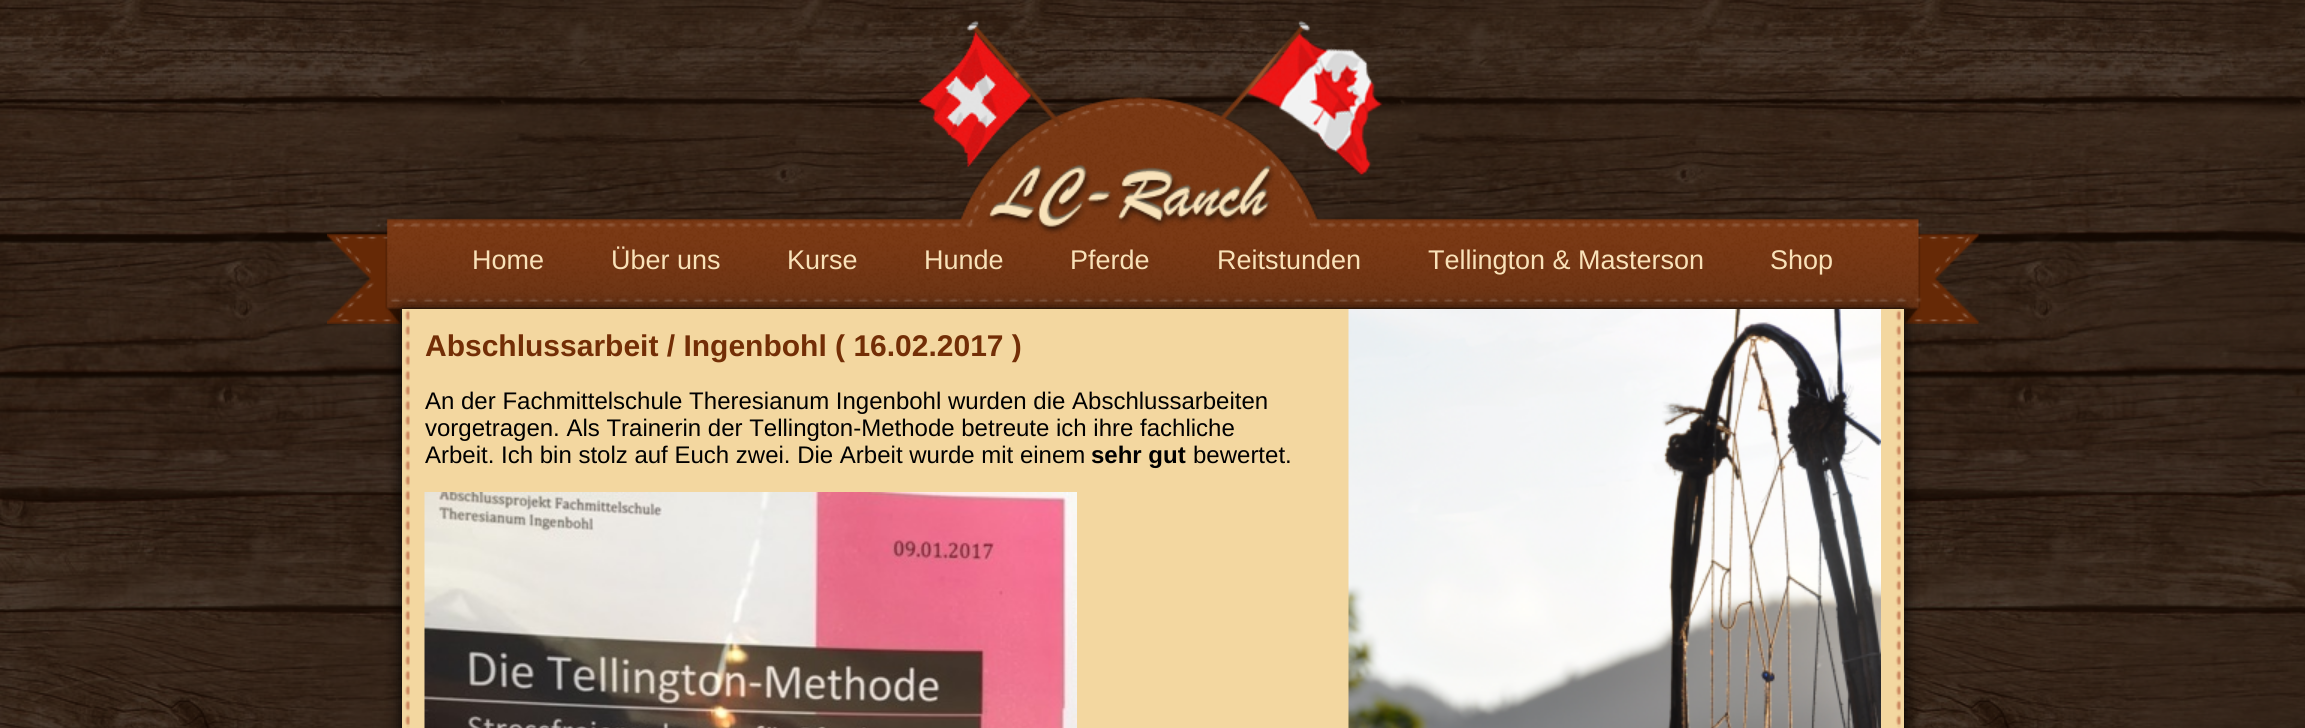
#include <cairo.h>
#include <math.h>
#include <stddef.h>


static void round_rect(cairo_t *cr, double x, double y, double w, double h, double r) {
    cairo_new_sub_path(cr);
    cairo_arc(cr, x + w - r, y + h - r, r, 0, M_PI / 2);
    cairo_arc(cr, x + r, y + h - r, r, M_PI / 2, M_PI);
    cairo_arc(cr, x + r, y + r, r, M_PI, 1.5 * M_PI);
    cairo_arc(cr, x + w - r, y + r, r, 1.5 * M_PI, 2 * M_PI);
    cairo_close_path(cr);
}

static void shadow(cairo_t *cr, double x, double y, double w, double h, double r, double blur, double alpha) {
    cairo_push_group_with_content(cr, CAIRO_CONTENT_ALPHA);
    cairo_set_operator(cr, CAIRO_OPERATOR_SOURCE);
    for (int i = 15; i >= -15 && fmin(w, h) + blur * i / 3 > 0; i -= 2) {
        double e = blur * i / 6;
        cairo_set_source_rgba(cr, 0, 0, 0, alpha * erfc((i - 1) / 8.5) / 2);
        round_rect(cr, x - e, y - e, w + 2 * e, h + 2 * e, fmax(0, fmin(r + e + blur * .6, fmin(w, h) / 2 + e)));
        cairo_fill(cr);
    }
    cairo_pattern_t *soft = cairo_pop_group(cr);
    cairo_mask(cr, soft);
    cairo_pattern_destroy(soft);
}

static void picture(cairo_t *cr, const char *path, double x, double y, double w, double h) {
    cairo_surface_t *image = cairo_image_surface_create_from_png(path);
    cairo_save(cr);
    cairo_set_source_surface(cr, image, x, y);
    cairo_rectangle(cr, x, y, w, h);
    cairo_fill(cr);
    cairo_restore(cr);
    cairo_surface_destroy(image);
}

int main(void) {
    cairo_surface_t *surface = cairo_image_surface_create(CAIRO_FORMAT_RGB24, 2305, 728);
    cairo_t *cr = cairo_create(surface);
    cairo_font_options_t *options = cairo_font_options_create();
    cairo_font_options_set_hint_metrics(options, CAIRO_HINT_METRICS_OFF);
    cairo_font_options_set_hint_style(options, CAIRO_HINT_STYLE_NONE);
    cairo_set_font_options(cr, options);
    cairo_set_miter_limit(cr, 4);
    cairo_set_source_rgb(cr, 1, 1, 1);
    cairo_paint(cr);
    picture(cr, "img1.png", 0, 0, 2305, 728);
    picture(cr, "img3.png", 327, 96, 1652, 228);
    picture(cr, "img2.png", 918, 20, 465, 214);
    cairo_select_font_face(cr, "Liberation Sans", CAIRO_FONT_SLANT_NORMAL, CAIRO_FONT_WEIGHT_NORMAL);
    cairo_set_font_size(cr, 27);
    cairo_set_source_rgb(cr, 0.973, 0.886, 0.725);
    cairo_move_to(cr, 472, 269);
    cairo_show_text(cr, "Home");
    cairo_move_to(cr, 611, 269);
    cairo_show_text(cr, "Über uns");
    cairo_move_to(cr, 787, 269);
    cairo_show_text(cr, "Kurse");
    cairo_move_to(cr, 924, 269);
    cairo_show_text(cr, "Hunde");
    cairo_move_to(cr, 1070, 269);
    cairo_show_text(cr, "Pferde");
    cairo_move_to(cr, 1217, 269);
    cairo_show_text(cr, "Reitstunden");
    cairo_move_to(cr, 1428, 269);
    cairo_show_text(cr, "Tellington & Masterson");
    cairo_move_to(cr, 1770, 269);
    cairo_show_text(cr, "Shop");
    cairo_set_source_rgb(cr, 0, 0, 0);
    shadow(cr, 402, 311, 1502, 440, 0, 7.5, 1);
    cairo_set_source_rgb(cr, 0.953, 0.843, 0.627);
    cairo_rectangle(cr, 402, 309, 1502, 419);
    cairo_fill(cr);
    picture(cr, "img4.png", 404, 310, 1497, 418);
    cairo_select_font_face(cr, "Liberation Sans", CAIRO_FONT_SLANT_NORMAL, CAIRO_FONT_WEIGHT_BOLD);
    cairo_set_font_size(cr, 30);
    cairo_set_source_rgb(cr, 0.451, 0.18, 0.027);
    cairo_move_to(cr, 425, 356);
    cairo_show_text(cr, "Abschlussarbeit / Ingenbohl ( 16.02.2017 )");
    cairo_select_font_face(cr, "Liberation Sans", CAIRO_FONT_SLANT_NORMAL, CAIRO_FONT_WEIGHT_NORMAL);
    cairo_set_font_size(cr, 24);
    cairo_set_source_rgb(cr, 0, 0, 0);
    cairo_move_to(cr, 425, 409);
    cairo_show_text(cr, "An der Fachmittelschule Theresianum Ingenbohl wurden die Abschlussarbeiten");
    cairo_move_to(cr, 425, 436);
    cairo_show_text(cr, "vorgetragen. Als Trainerin der Tellington-Methode betreute ich ihre fachliche");
    cairo_move_to(cr, 425, 463);
    cairo_show_text(cr, "Arbeit. Ich bin stolz auf Euch zwei. Die Arbeit wurde mit einem");
    cairo_select_font_face(cr, "Liberation Sans", CAIRO_FONT_SLANT_NORMAL, CAIRO_FONT_WEIGHT_BOLD);
    cairo_move_to(cr, 1091, 463);
    cairo_show_text(cr, "sehr gut");
    cairo_select_font_face(cr, "Liberation Sans", CAIRO_FONT_SLANT_NORMAL, CAIRO_FONT_WEIGHT_NORMAL);
    cairo_move_to(cr, 1193, 463);
    cairo_show_text(cr, "bewertet.");
    picture(cr, "img5.png", 424, 492, 653, 236);
    picture(cr, "img6.png", 1348, 309, 533, 419);
    cairo_surface_write_to_png(surface, "page.png");
    cairo_font_options_destroy(options);
    cairo_destroy(cr);
    cairo_surface_destroy(surface);
    return 0;
}
